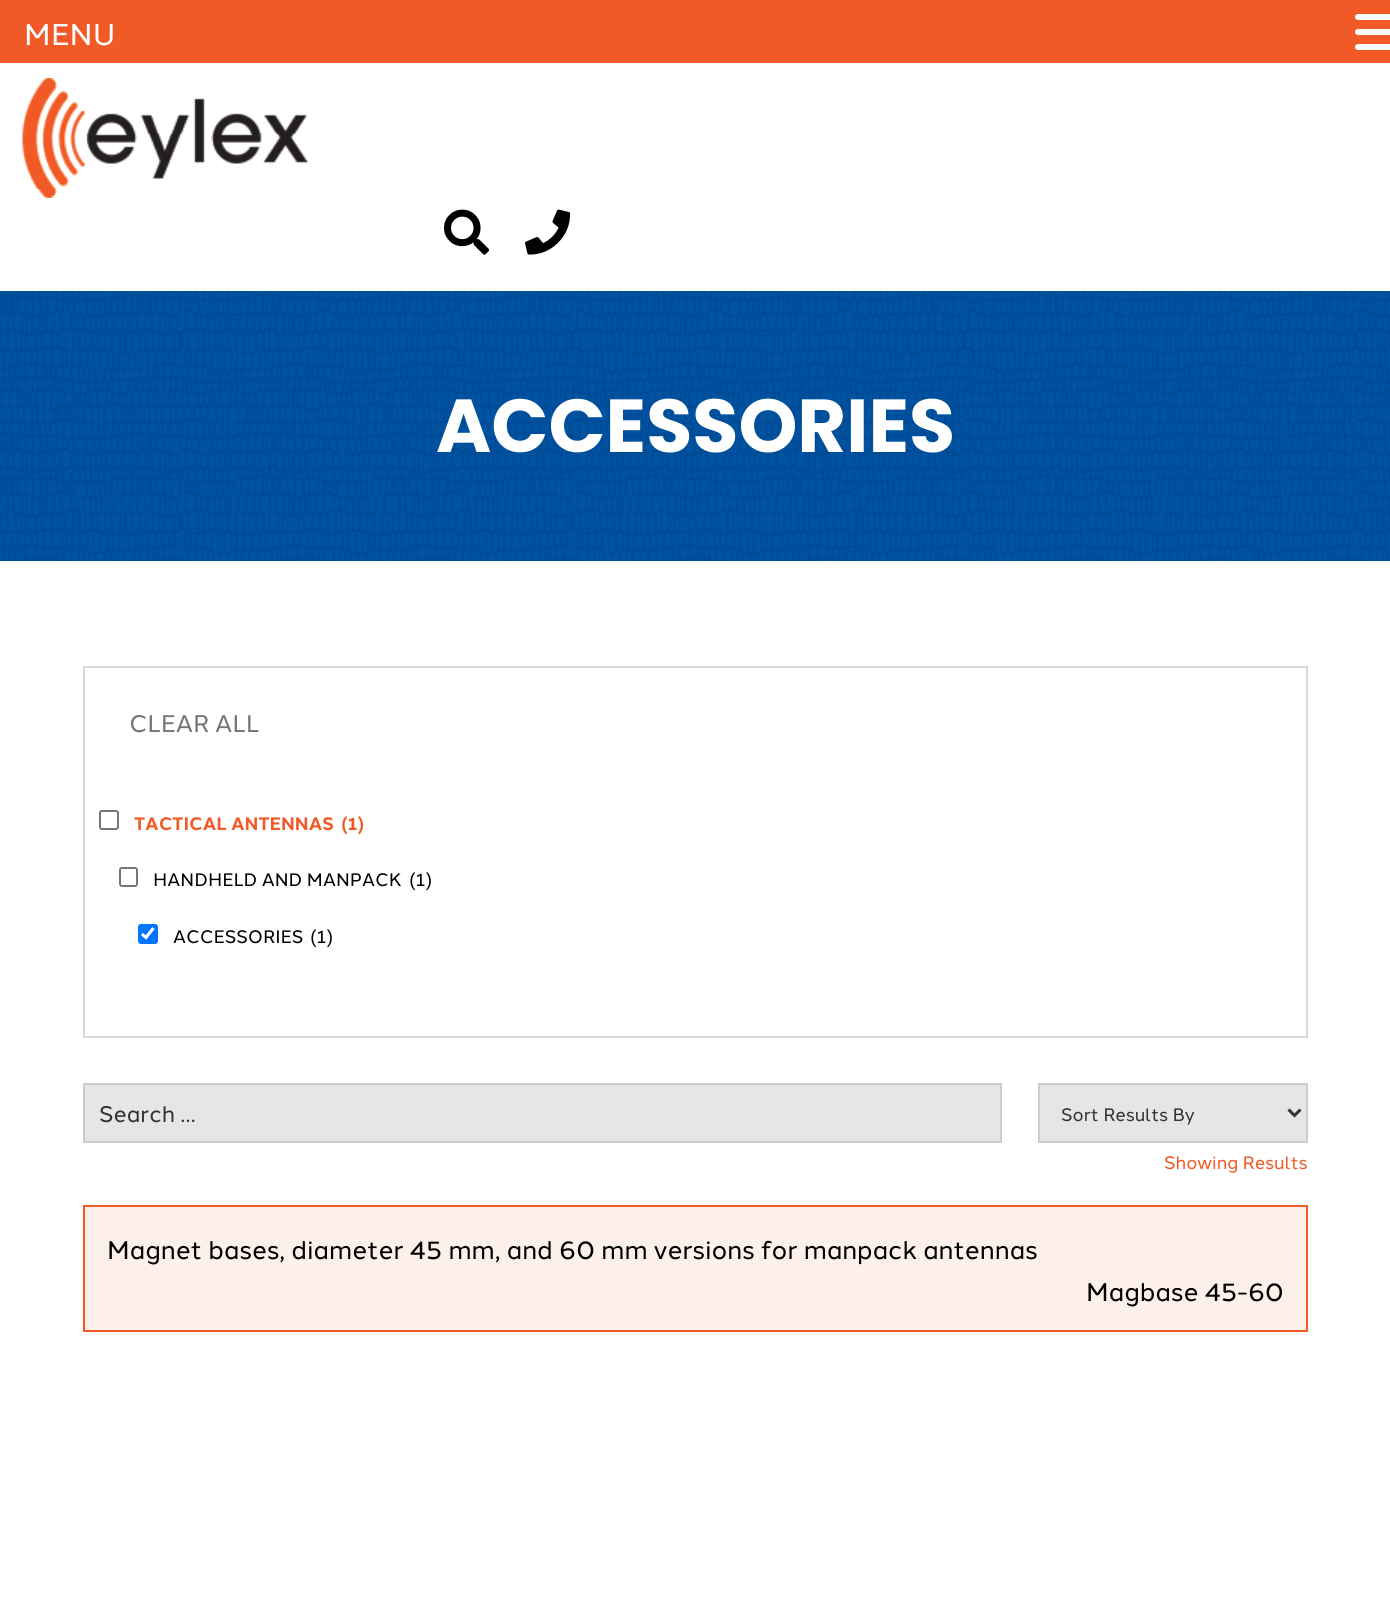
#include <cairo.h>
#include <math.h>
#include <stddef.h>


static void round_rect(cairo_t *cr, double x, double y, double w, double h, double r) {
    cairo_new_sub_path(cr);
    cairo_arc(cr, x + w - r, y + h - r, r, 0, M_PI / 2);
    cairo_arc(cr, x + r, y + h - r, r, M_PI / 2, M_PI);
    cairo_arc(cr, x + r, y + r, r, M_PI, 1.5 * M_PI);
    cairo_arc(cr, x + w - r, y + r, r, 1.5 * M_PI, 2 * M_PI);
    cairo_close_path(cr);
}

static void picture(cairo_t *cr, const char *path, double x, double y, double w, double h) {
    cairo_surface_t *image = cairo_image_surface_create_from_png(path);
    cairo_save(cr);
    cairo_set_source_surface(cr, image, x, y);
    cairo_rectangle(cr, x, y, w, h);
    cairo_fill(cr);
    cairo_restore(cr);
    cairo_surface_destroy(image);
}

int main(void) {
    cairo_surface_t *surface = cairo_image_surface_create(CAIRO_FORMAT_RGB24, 1390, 1600);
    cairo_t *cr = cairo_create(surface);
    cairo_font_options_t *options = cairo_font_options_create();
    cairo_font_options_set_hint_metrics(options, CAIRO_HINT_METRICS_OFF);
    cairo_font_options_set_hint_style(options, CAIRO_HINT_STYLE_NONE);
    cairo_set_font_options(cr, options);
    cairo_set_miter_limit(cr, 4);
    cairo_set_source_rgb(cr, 1, 1, 1);
    cairo_paint(cr);
    cairo_set_source_rgb(cr, 0.945, 0.353, 0.153);
    cairo_rectangle(cr, 0, 0, 1390, 63);
    cairo_fill(cr);
    cairo_select_font_face(cr, "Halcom", CAIRO_FONT_SLANT_NORMAL, CAIRO_FONT_WEIGHT_NORMAL);
    cairo_set_font_size(cr, 30);
    cairo_set_source_rgb(cr, 1, 1, 1);
    cairo_move_to(cr, 24, 45);
    cairo_show_text(cr, "MENU");
    round_rect(cr, 1355, 14, 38, 6, 3);
    cairo_fill(cr);
    round_rect(cr, 1355, 29, 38, 6, 3);
    cairo_fill(cr);
    round_rect(cr, 1355, 44, 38, 6, 3);
    cairo_fill(cr);
    picture(cr, "img1.png", 22, 78, 286, 120);
    picture(cr, "img2.png", 444, 209, 45, 46);
    picture(cr, "img3.png", 525, 209, 46, 46);
    picture(cr, "img4.png", 0, 291, 1390, 270);
    cairo_select_font_face(cr, "Poppins", CAIRO_FONT_SLANT_NORMAL, CAIRO_FONT_WEIGHT_BOLD);
    cairo_set_font_size(cr, 75);
    cairo_move_to(cr, 436, 452);
    cairo_show_text(cr, "ACCESSORIES");
    cairo_rectangle(cr, 84, 667, 1223, 370);
    cairo_set_source_rgb(cr, 0.851, 0.851, 0.851);
    cairo_stroke(cr);
    cairo_select_font_face(cr, "Halcom", CAIRO_FONT_SLANT_NORMAL, CAIRO_FONT_WEIGHT_NORMAL);
    cairo_set_font_size(cr, 24);
    cairo_set_source_rgb(cr, 0.459, 0.459, 0.459);
    cairo_move_to(cr, 129, 732);
    cairo_show_text(cr, "CLEAR ALL");
    round_rect(cr, 100, 811, 18, 18, 2);
    cairo_set_source_rgb(cr, 0.463, 0.463, 0.463);
    cairo_stroke(cr);
    cairo_select_font_face(cr, "Halcom", CAIRO_FONT_SLANT_NORMAL, CAIRO_FONT_WEIGHT_BOLD);
    cairo_set_font_size(cr, 18);
    cairo_set_source_rgb(cr, 0.945, 0.353, 0.153);
    cairo_move_to(cr, 134, 830);
    cairo_show_text(cr, "TACTICAL ANTENNAS");
    cairo_move_to(cr, 341, 830);
    cairo_show_text(cr, "(1)");
    round_rect(cr, 120, 868, 17, 18, 2);
    cairo_set_source_rgb(cr, 0.463, 0.463, 0.463);
    cairo_stroke(cr);
    cairo_select_font_face(cr, "Halcom", CAIRO_FONT_SLANT_NORMAL, CAIRO_FONT_WEIGHT_NORMAL);
    cairo_set_source_rgb(cr, 0, 0, 0);
    cairo_move_to(cr, 153, 886);
    cairo_show_text(cr, "HANDHELD AND MANPACK");
    cairo_move_to(cr, 409, 886);
    cairo_show_text(cr, "(1)");
    cairo_set_source_rgb(cr, 0, 0.459, 1);
    round_rect(cr, 138, 924, 20, 20, 3);
    cairo_fill(cr);
    cairo_new_path(cr);
    cairo_move_to(cr, 142, 934);
    cairo_line_to(cr, 146, 937.5);
    cairo_line_to(cr, 153.5, 928);
    cairo_set_source_rgb(cr, 1, 1, 1);
    cairo_set_line_width(cr, 3.1);
    cairo_stroke(cr);
    cairo_set_source_rgb(cr, 0, 0, 0);
    cairo_move_to(cr, 173, 943);
    cairo_show_text(cr, "ACCESSORIES");
    cairo_move_to(cr, 310, 943);
    cairo_show_text(cr, "(1)");
    cairo_set_source_rgb(cr, 0.902, 0.902, 0.902);
    cairo_rectangle(cr, 84, 1084, 917, 58);
    cairo_fill_preserve(cr);
    cairo_set_source_rgb(cr, 0.8, 0.8, 0.8);
    cairo_set_line_width(cr, 2);
    cairo_stroke(cr);
    cairo_set_font_size(cr, 22.5);
    cairo_set_source_rgb(cr, 0.2, 0.2, 0.2);
    cairo_move_to(cr, 99, 1122);
    cairo_show_text(cr, "Search …");
    cairo_set_source_rgb(cr, 0.902, 0.902, 0.902);
    cairo_rectangle(cr, 1039, 1084, 268, 58);
    cairo_fill_preserve(cr);
    cairo_set_source_rgb(cr, 0.8, 0.8, 0.8);
    cairo_stroke(cr);
    cairo_new_path(cr);
    cairo_move_to(cr, 1288.5, 1109.5);
    cairo_line_to(cr, 1294.5, 1115.5);
    cairo_line_to(cr, 1300.5, 1109.5);
    cairo_set_source_rgb(cr, 0.2, 0.2, 0.2);
    cairo_set_line_width(cr, 3);
    cairo_stroke(cr);
    cairo_set_font_size(cr, 18);
    cairo_move_to(cr, 1061, 1121);
    cairo_show_text(cr, "Sort Results By");
    cairo_set_source_rgb(cr, 0.945, 0.353, 0.153);
    cairo_move_to(cr, 1164, 1169);
    cairo_show_text(cr, "Showing Results");
    cairo_set_source_rgb(cr, 0.992, 0.937, 0.914);
    cairo_rectangle(cr, 84, 1206, 1223, 125);
    cairo_fill_preserve(cr);
    cairo_set_source_rgb(cr, 0.945, 0.353, 0.153);
    cairo_set_line_width(cr, 2);
    cairo_stroke(cr);
    cairo_set_font_size(cr, 25.5);
    cairo_set_source_rgb(cr, 0, 0, 0);
    cairo_move_to(cr, 107, 1259);
    cairo_show_text(cr, "Magnet bases, diameter 45 mm, and 60 mm versions for manpack antennas");
    cairo_move_to(cr, 1086, 1301);
    cairo_show_text(cr, "Magbase 45-60");
    cairo_surface_write_to_png(surface, "page.png");
    cairo_font_options_destroy(options);
    cairo_destroy(cr);
    cairo_surface_destroy(surface);
    return 0;
}
